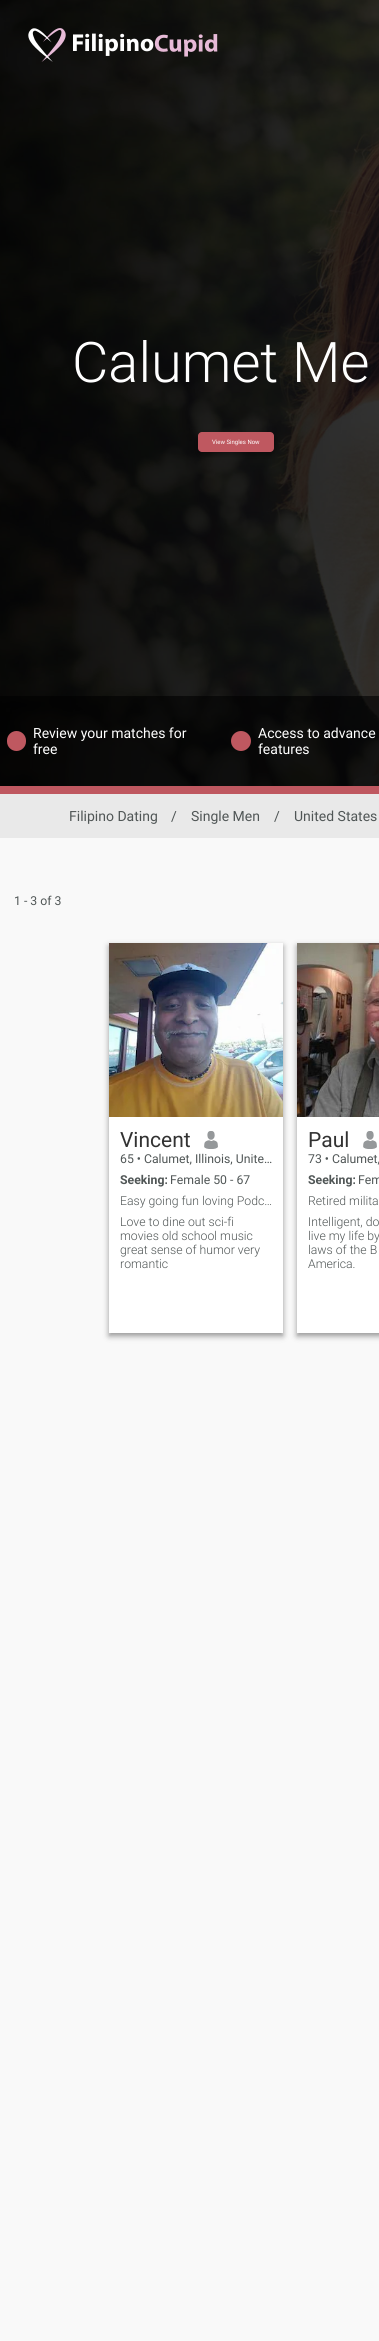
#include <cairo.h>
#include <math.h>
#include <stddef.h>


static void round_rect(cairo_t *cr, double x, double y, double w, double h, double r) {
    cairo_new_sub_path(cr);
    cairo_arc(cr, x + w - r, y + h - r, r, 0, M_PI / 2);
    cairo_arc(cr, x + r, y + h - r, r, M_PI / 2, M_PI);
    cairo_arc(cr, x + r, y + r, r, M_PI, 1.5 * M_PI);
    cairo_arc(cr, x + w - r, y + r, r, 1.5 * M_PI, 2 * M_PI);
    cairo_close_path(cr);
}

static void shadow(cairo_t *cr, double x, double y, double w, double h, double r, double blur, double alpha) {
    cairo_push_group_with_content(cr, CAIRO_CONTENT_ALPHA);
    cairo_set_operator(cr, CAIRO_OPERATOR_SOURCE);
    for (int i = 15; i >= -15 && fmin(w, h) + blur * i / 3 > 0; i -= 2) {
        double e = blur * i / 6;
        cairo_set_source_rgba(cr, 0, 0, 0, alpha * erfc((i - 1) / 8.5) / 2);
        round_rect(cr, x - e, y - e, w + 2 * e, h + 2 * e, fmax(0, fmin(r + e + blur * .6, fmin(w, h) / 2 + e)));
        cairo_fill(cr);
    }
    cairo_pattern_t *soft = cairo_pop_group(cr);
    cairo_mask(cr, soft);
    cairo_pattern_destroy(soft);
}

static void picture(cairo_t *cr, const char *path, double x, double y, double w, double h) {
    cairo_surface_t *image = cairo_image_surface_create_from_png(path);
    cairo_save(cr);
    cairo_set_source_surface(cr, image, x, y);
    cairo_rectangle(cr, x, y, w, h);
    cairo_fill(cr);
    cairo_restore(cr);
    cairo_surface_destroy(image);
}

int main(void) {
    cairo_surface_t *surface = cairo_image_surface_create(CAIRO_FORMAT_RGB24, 379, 2341);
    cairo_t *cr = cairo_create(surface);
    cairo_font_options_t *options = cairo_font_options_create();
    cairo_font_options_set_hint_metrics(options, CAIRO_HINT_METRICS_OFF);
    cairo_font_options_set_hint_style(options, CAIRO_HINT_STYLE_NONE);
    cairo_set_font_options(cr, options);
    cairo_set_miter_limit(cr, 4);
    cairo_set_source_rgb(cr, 0.973, 0.973, 0.973);
    cairo_paint(cr);
    picture(cr, "img3.png", 0, 0, 379, 786);
    picture(cr, "img1.png", 28, 28, 38, 34);
    picture(cr, "img2.png", 73, 33, 145, 24);
    cairo_select_font_face(cr, "Roboto Light", CAIRO_FONT_SLANT_NORMAL, CAIRO_FONT_WEIGHT_NORMAL);
    cairo_set_font_size(cr, 56);
    cairo_set_source_rgb(cr, 1, 1, 1);
    cairo_move_to(cr, 72, 382);
    cairo_show_text(cr, "Calumet Me");
    cairo_set_source_rgb(cr, 0, 0, 0);
    shadow(cr, 198, 435, 76, 20, 4, 3, 0.4);
    cairo_set_source_rgb(cr, 0.749, 0.345, 0.376);
    round_rect(cr, 198, 432, 76, 20, 4);
    cairo_fill(cr);
    cairo_select_font_face(cr, "Roboto", CAIRO_FONT_SLANT_NORMAL, CAIRO_FONT_WEIGHT_NORMAL);
    cairo_set_font_size(cr, 6);
    cairo_set_source_rgb(cr, 1, 1, 1);
    cairo_move_to(cr, 212, 444);
    cairo_show_text(cr, "View Singles Now");
    cairo_set_source_rgba(cr, 0, 0, 0, 0.6);
    cairo_rectangle(cr, 0, 696, 379, 90);
    cairo_fill(cr);
    cairo_set_source_rgb(cr, 0.749, 0.345, 0.376);
    round_rect(cr, 7, 731, 19, 20, 9.5);
    cairo_fill(cr);
    cairo_set_font_size(cr, 14);
    cairo_set_source_rgb(cr, 1, 1, 1);
    cairo_move_to(cr, 33, 738);
    cairo_show_text(cr, "Review your matches for");
    cairo_move_to(cr, 33, 754);
    cairo_show_text(cr, "free");
    cairo_set_source_rgb(cr, 0.749, 0.345, 0.376);
    cairo_new_path(cr);
    cairo_arc(cr, 241, 741, 10, 0, 2 * M_PI);
    cairo_fill(cr);
    cairo_set_source_rgb(cr, 1, 1, 1);
    cairo_move_to(cr, 258, 738);
    cairo_show_text(cr, "Access to advance");
    cairo_move_to(cr, 258, 754);
    cairo_show_text(cr, "features");
    cairo_set_source_rgb(cr, 0.749, 0.345, 0.376);
    cairo_rectangle(cr, 0, 786, 379, 8);
    cairo_fill(cr);
    cairo_set_source_rgb(cr, 0.914, 0.914, 0.914);
    cairo_rectangle(cr, 0, 794, 379, 44);
    cairo_fill(cr);
    cairo_set_source_rgb(cr, 0.314, 0.337, 0.337);
    cairo_move_to(cr, 69, 821);
    cairo_show_text(cr, "Filipino Dating");
    cairo_move_to(cr, 171, 821);
    cairo_show_text(cr, "/");
    cairo_move_to(cr, 191, 821);
    cairo_show_text(cr, "Single Men");
    cairo_move_to(cr, 274, 821);
    cairo_show_text(cr, "/");
    cairo_move_to(cr, 294, 821);
    cairo_show_text(cr, "United States");
    cairo_set_font_size(cr, 12.25);
    cairo_move_to(cr, 14, 905);
    cairo_show_text(cr, "1 - 3 of 3");
    cairo_set_source_rgb(cr, 0, 0, 0);
    shadow(cr, 109, 946, 174, 390, 0, 3, 0.4);
    cairo_set_source_rgb(cr, 1, 1, 1);
    cairo_rectangle(cr, 109, 1117, 174, 216);
    cairo_fill(cr);
    picture(cr, "img4.png", 109, 943, 174, 174);
    cairo_set_font_size(cr, 21);
    cairo_set_source_rgb(cr, 0.196, 0.196, 0.196);
    cairo_move_to(cr, 120, 1147);
    cairo_show_text(cr, "Vincent");
    picture(cr, "img5.png", 204, 1131, 14, 18);
    cairo_set_font_size(cr, 12.25);
    cairo_set_source_rgb(cr, 0.314, 0.337, 0.337);
    cairo_move_to(cr, 120, 1163);
    cairo_show_text(cr, "65 • Calumet, Illinois, Unite…");
    cairo_select_font_face(cr, "Roboto", CAIRO_FONT_SLANT_NORMAL, CAIRO_FONT_WEIGHT_BOLD);
    cairo_move_to(cr, 120, 1184);
    cairo_show_text(cr, "Seeking:");
    cairo_select_font_face(cr, "Roboto", CAIRO_FONT_SLANT_NORMAL, CAIRO_FONT_WEIGHT_NORMAL);
    cairo_move_to(cr, 170, 1184);
    cairo_show_text(cr, "Female 50 - 67");
    cairo_select_font_face(cr, "Roboto Light", CAIRO_FONT_SLANT_NORMAL, CAIRO_FONT_WEIGHT_NORMAL);
    cairo_move_to(cr, 120, 1205);
    cairo_show_text(cr, "Easy going fun loving Podc…");
    cairo_move_to(cr, 120, 1226);
    cairo_show_text(cr, "Love to dine out sci-fi");
    cairo_move_to(cr, 120, 1240);
    cairo_show_text(cr, "movies old school music");
    cairo_move_to(cr, 120, 1254);
    cairo_show_text(cr, "great sense of humor very");
    cairo_move_to(cr, 120, 1268);
    cairo_show_text(cr, "romantic");
    cairo_set_source_rgb(cr, 0, 0, 0);
    shadow(cr, 297, 946, 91, 390, 0, 3, 0.4);
    cairo_set_source_rgb(cr, 1, 1, 1);
    cairo_rectangle(cr, 297, 1117, 82, 216);
    cairo_fill(cr);
    picture(cr, "img6.png", 297, 943, 82, 174);
    cairo_select_font_face(cr, "Roboto", CAIRO_FONT_SLANT_NORMAL, CAIRO_FONT_WEIGHT_NORMAL);
    cairo_set_font_size(cr, 21);
    cairo_set_source_rgb(cr, 0.196, 0.196, 0.196);
    cairo_move_to(cr, 308, 1147);
    cairo_show_text(cr, "Paul");
    picture(cr, "img5.png", 363, 1131, 14, 18);
    cairo_set_font_size(cr, 12.25);
    cairo_set_source_rgb(cr, 0.314, 0.337, 0.337);
    cairo_move_to(cr, 308, 1163);
    cairo_show_text(cr, "73 • Calumet,");
    cairo_select_font_face(cr, "Roboto", CAIRO_FONT_SLANT_NORMAL, CAIRO_FONT_WEIGHT_BOLD);
    cairo_move_to(cr, 308, 1184);
    cairo_show_text(cr, "Seeking:");
    cairo_select_font_face(cr, "Roboto", CAIRO_FONT_SLANT_NORMAL, CAIRO_FONT_WEIGHT_NORMAL);
    cairo_move_to(cr, 358, 1184);
    cairo_show_text(cr, "Fem");
    cairo_select_font_face(cr, "Roboto Light", CAIRO_FONT_SLANT_NORMAL, CAIRO_FONT_WEIGHT_NORMAL);
    cairo_move_to(cr, 308, 1205);
    cairo_show_text(cr, "Retired milita");
    cairo_move_to(cr, 308, 1226);
    cairo_show_text(cr, "Intelligent, do");
    cairo_move_to(cr, 308, 1240);
    cairo_show_text(cr, "live my life by");
    cairo_move_to(cr, 308, 1254);
    cairo_show_text(cr, "laws of the B");
    cairo_move_to(cr, 308, 1268);
    cairo_show_text(cr, "America.");
    cairo_surface_write_to_png(surface, "page.png");
    cairo_font_options_destroy(options);
    cairo_destroy(cr);
    cairo_surface_destroy(surface);
    return 0;
}
